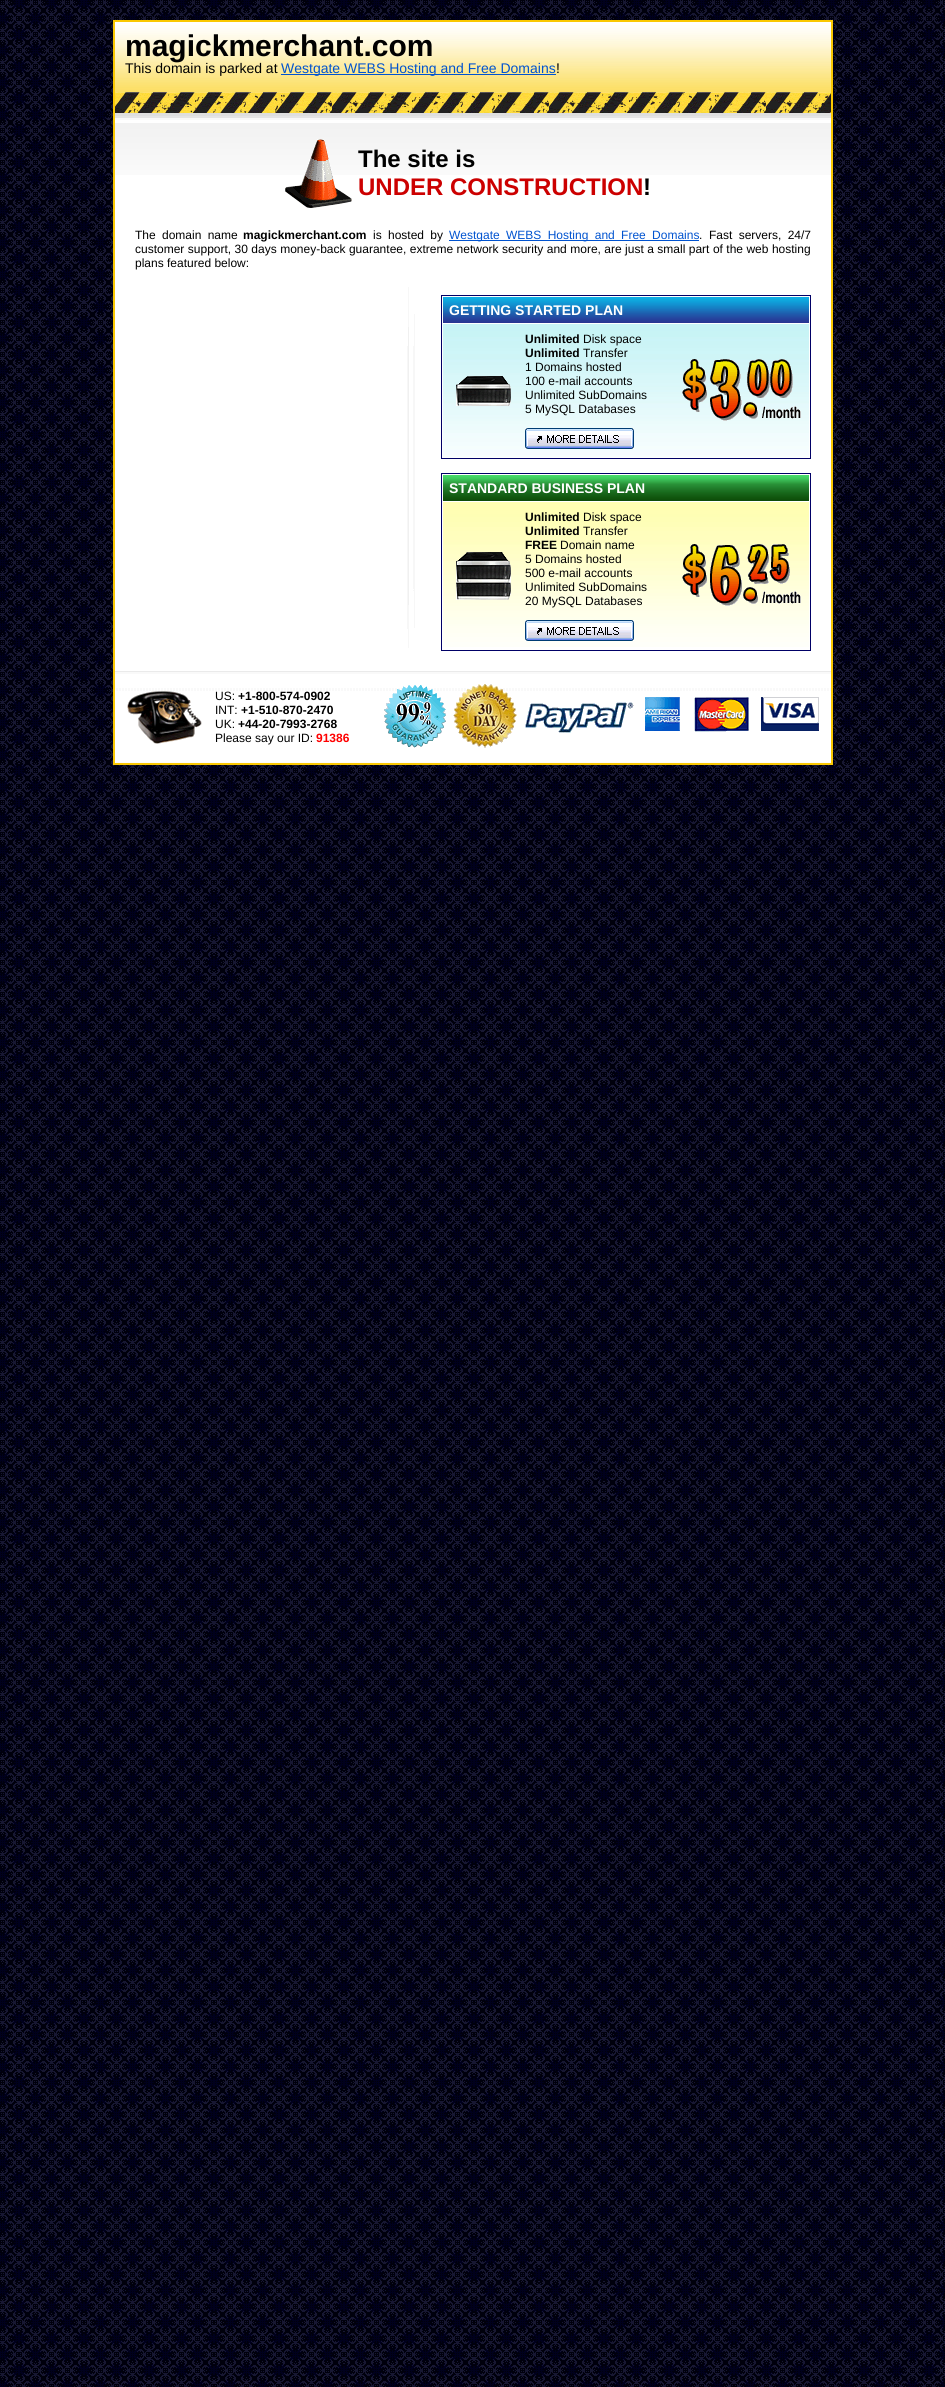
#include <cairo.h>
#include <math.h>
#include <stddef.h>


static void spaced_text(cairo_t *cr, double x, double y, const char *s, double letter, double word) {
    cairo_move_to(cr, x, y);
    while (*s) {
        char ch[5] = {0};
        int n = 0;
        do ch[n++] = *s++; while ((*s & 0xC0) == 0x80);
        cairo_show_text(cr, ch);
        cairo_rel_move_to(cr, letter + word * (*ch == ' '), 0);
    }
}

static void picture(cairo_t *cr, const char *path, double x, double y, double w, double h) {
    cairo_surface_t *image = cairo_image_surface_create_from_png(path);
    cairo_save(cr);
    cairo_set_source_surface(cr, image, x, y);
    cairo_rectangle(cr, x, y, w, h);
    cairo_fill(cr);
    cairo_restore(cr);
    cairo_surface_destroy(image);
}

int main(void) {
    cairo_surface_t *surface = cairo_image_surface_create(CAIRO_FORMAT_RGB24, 945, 2387);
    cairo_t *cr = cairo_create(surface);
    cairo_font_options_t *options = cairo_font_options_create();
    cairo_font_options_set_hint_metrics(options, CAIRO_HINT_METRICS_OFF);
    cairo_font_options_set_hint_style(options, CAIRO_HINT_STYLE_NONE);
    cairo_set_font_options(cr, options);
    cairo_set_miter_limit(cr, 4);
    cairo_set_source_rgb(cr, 1, 1, 1);
    cairo_paint(cr);
    picture(cr, "img1.png", 0, 0, 945, 2387);
    cairo_set_source_rgb(cr, 1, 1, 1);
    cairo_rectangle(cr, 115, 22, 716, 649);
    cairo_fill(cr);
    cairo_rectangle(cr, 114, 21, 718, 743);
    cairo_set_source_rgb(cr, 0.98, 0.784, 0.008);
    cairo_stroke(cr);
    picture(cr, "img2.png", 115, 25, 716, 67);
    cairo_select_font_face(cr, "Liberation Sans", CAIRO_FONT_SLANT_NORMAL, CAIRO_FONT_WEIGHT_BOLD);
    cairo_set_font_size(cr, 30);
    cairo_set_source_rgb(cr, 0, 0, 0);
    cairo_move_to(cr, 125, 56);
    cairo_show_text(cr, "magickmerchant.com");
    cairo_select_font_face(cr, "Liberation Sans", CAIRO_FONT_SLANT_NORMAL, CAIRO_FONT_WEIGHT_NORMAL);
    cairo_set_font_size(cr, 14);
    cairo_move_to(cr, 125, 73);
    cairo_show_text(cr, "This domain is parked at");
    cairo_set_source_rgb(cr, 0, 0.325, 0.816);
    cairo_rectangle(cr, 281, 74, 275, 1);
    cairo_fill(cr);
    cairo_move_to(cr, 281, 73);
    cairo_show_text(cr, "Westgate WEBS Hosting and Free Domains");
    cairo_set_source_rgb(cr, 0, 0, 0);
    cairo_move_to(cr, 556, 73);
    cairo_show_text(cr, "!");
    picture(cr, "img3.png", 115, 92, 716, 28);
    picture(cr, "img4.png", 115, 123, 716, 52);
    picture(cr, "img5.png", 285, 139, 67, 69);
    cairo_select_font_face(cr, "Liberation Sans", CAIRO_FONT_SLANT_NORMAL, CAIRO_FONT_WEIGHT_BOLD);
    cairo_set_font_size(cr, 24);
    cairo_move_to(cr, 358, 167);
    cairo_show_text(cr, "The site is");
    cairo_set_source_rgb(cr, 0.8, 0, 0);
    cairo_move_to(cr, 358, 195);
    cairo_show_text(cr, "UNDER CONSTRUCTION");
    cairo_set_source_rgb(cr, 0, 0, 0);
    cairo_move_to(cr, 643, 195);
    cairo_show_text(cr, "!");
    cairo_select_font_face(cr, "Liberation Sans", CAIRO_FONT_SLANT_NORMAL, CAIRO_FONT_WEIGHT_NORMAL);
    cairo_set_font_size(cr, 12);
    spaced_text(cr, 135, 239, "The domain name", 0, 3);
    cairo_select_font_face(cr, "Liberation Sans", CAIRO_FONT_SLANT_NORMAL, CAIRO_FONT_WEIGHT_BOLD);
    cairo_move_to(cr, 243, 239);
    cairo_show_text(cr, "magickmerchant.com");
    cairo_select_font_face(cr, "Liberation Sans", CAIRO_FONT_SLANT_NORMAL, CAIRO_FONT_WEIGHT_NORMAL);
    spaced_text(cr, 373, 239, "is hosted by", 0, 3);
    cairo_set_source_rgb(cr, 0, 0.325, 0.816);
    cairo_rectangle(cr, 449, 240, 250, 1);
    cairo_fill(cr);
    spaced_text(cr, 449, 239, "Westgate WEBS Hosting and Free Domains", 0, 3);
    cairo_set_source_rgb(cr, 0, 0, 0);
    cairo_move_to(cr, 699, 239);
    cairo_show_text(cr, ".");
    spaced_text(cr, 709, 239, "Fast servers, 24/7", 0, 3);
    spaced_text(cr, 135, 253, "customer support, 30 days money-back guarantee, extreme network security and more, are just a small part of the web hosting", 0, 0.1);
    cairo_move_to(cr, 135, 267);
    cairo_show_text(cr, "plans featured below:");
    picture(cr, "img6.png", 407, 287, 8, 361);
    cairo_rectangle(cr, 441.5, 295.5, 369, 163);
    cairo_set_source_rgb(cr, 0, 0, 0.4);
    cairo_set_line_width(cr, 1);
    cairo_stroke(cr);
    picture(cr, "img7.png", 443, 297, 366, 26);
    cairo_select_font_face(cr, "Liberation Sans", CAIRO_FONT_SLANT_NORMAL, CAIRO_FONT_WEIGHT_BOLD);
    cairo_set_font_size(cr, 14);
    cairo_set_source_rgb(cr, 1, 1, 1);
    cairo_move_to(cr, 449, 315);
    cairo_show_text(cr, "GETTING STARTED PLAN");
    picture(cr, "img8.png", 443, 324, 366, 133);
    picture(cr, "img9.png", 456, 376, 55, 30);
    cairo_set_font_size(cr, 12);
    cairo_set_source_rgb(cr, 0, 0, 0);
    cairo_move_to(cr, 525, 343);
    cairo_show_text(cr, "Unlimited");
    cairo_select_font_face(cr, "Liberation Sans", CAIRO_FONT_SLANT_NORMAL, CAIRO_FONT_WEIGHT_NORMAL);
    cairo_move_to(cr, 583, 343);
    cairo_show_text(cr, "Disk space");
    cairo_select_font_face(cr, "Liberation Sans", CAIRO_FONT_SLANT_NORMAL, CAIRO_FONT_WEIGHT_BOLD);
    cairo_move_to(cr, 525, 357);
    cairo_show_text(cr, "Unlimited");
    cairo_select_font_face(cr, "Liberation Sans", CAIRO_FONT_SLANT_NORMAL, CAIRO_FONT_WEIGHT_NORMAL);
    cairo_move_to(cr, 583, 357);
    cairo_show_text(cr, "Transfer");
    cairo_move_to(cr, 525, 371);
    cairo_show_text(cr, "1 Domains hosted");
    cairo_move_to(cr, 525, 385);
    cairo_show_text(cr, "100 e-mail accounts");
    cairo_move_to(cr, 525, 399);
    cairo_show_text(cr, "Unlimited SubDomains");
    cairo_move_to(cr, 525, 413);
    cairo_show_text(cr, "5 MySQL Databases");
    picture(cr, "img10.png", 525, 428, 109, 21);
    picture(cr, "img11.png", 682, 359, 25, 53);
    picture(cr, "img12.png", 710, 359, 32, 62);
    picture(cr, "img13.png", 747, 359, 23, 39);
    picture(cr, "img13.png", 770, 359, 23, 39);
    picture(cr, "img14.png", 743, 402, 15, 17);
    picture(cr, "img15.png", 762, 406, 39, 13);
    cairo_rectangle(cr, 441.5, 473.5, 369, 177);
    cairo_set_source_rgb(cr, 0, 0, 0.4);
    cairo_stroke(cr);
    picture(cr, "img16.png", 443, 475, 366, 26);
    cairo_select_font_face(cr, "Liberation Sans", CAIRO_FONT_SLANT_NORMAL, CAIRO_FONT_WEIGHT_BOLD);
    cairo_set_font_size(cr, 14);
    cairo_set_source_rgb(cr, 1, 1, 1);
    cairo_move_to(cr, 449, 493);
    cairo_show_text(cr, "STANDARD BUSINESS PLAN");
    picture(cr, "img17.png", 443, 502, 366, 145);
    picture(cr, "img18.png", 456, 552, 55, 48);
    cairo_set_font_size(cr, 12);
    cairo_set_source_rgb(cr, 0, 0, 0);
    cairo_move_to(cr, 525, 521);
    cairo_show_text(cr, "Unlimited");
    cairo_select_font_face(cr, "Liberation Sans", CAIRO_FONT_SLANT_NORMAL, CAIRO_FONT_WEIGHT_NORMAL);
    cairo_move_to(cr, 583, 521);
    cairo_show_text(cr, "Disk space");
    cairo_select_font_face(cr, "Liberation Sans", CAIRO_FONT_SLANT_NORMAL, CAIRO_FONT_WEIGHT_BOLD);
    cairo_move_to(cr, 525, 535);
    cairo_show_text(cr, "Unlimited");
    cairo_select_font_face(cr, "Liberation Sans", CAIRO_FONT_SLANT_NORMAL, CAIRO_FONT_WEIGHT_NORMAL);
    cairo_move_to(cr, 583, 535);
    cairo_show_text(cr, "Transfer");
    cairo_select_font_face(cr, "Liberation Sans", CAIRO_FONT_SLANT_NORMAL, CAIRO_FONT_WEIGHT_BOLD);
    cairo_move_to(cr, 525, 549);
    cairo_show_text(cr, "FREE");
    cairo_select_font_face(cr, "Liberation Sans", CAIRO_FONT_SLANT_NORMAL, CAIRO_FONT_WEIGHT_NORMAL);
    cairo_move_to(cr, 560, 549);
    cairo_show_text(cr, "Domain name");
    cairo_move_to(cr, 525, 563);
    cairo_show_text(cr, "5 Domains hosted");
    cairo_move_to(cr, 525, 577);
    cairo_show_text(cr, "500 e-mail accounts");
    cairo_move_to(cr, 525, 591);
    cairo_show_text(cr, "Unlimited SubDomains");
    cairo_move_to(cr, 525, 605);
    cairo_show_text(cr, "20 MySQL Databases");
    picture(cr, "img10.png", 525, 620, 109, 21);
    picture(cr, "img19.png", 682, 544, 25, 53);
    picture(cr, "img20.png", 710, 545, 32, 61);
    picture(cr, "img21.png", 747, 544, 22, 40);
    picture(cr, "img22.png", 769, 544, 21, 40);
    picture(cr, "img23.png", 743, 587, 15, 17);
    picture(cr, "img24.png", 762, 591, 39, 13);
    picture(cr, "img25.png", 115, 671, 716, 92);
    picture(cr, "img26.png", 127, 691, 75, 53);
    cairo_move_to(cr, 215, 700);
    cairo_show_text(cr, "US:");
    cairo_select_font_face(cr, "Liberation Sans", CAIRO_FONT_SLANT_NORMAL, CAIRO_FONT_WEIGHT_BOLD);
    cairo_move_to(cr, 238, 700);
    cairo_show_text(cr, "+1-800-574-0902");
    cairo_select_font_face(cr, "Liberation Sans", CAIRO_FONT_SLANT_NORMAL, CAIRO_FONT_WEIGHT_NORMAL);
    cairo_move_to(cr, 215, 714);
    cairo_show_text(cr, "INT:");
    cairo_select_font_face(cr, "Liberation Sans", CAIRO_FONT_SLANT_NORMAL, CAIRO_FONT_WEIGHT_BOLD);
    cairo_move_to(cr, 241, 714);
    cairo_show_text(cr, "+1-510-870-2470");
    cairo_select_font_face(cr, "Liberation Sans", CAIRO_FONT_SLANT_NORMAL, CAIRO_FONT_WEIGHT_NORMAL);
    cairo_move_to(cr, 215, 728);
    cairo_show_text(cr, "UK:");
    cairo_select_font_face(cr, "Liberation Sans", CAIRO_FONT_SLANT_NORMAL, CAIRO_FONT_WEIGHT_BOLD);
    cairo_move_to(cr, 238, 728);
    cairo_show_text(cr, "+44-20-7993-2768");
    cairo_select_font_face(cr, "Liberation Sans", CAIRO_FONT_SLANT_NORMAL, CAIRO_FONT_WEIGHT_NORMAL);
    cairo_move_to(cr, 215, 742);
    cairo_show_text(cr, "Please say our ID:");
    cairo_select_font_face(cr, "Liberation Sans", CAIRO_FONT_SLANT_NORMAL, CAIRO_FONT_WEIGHT_BOLD);
    cairo_set_source_rgb(cr, 1, 0, 0);
    cairo_move_to(cr, 316, 742);
    cairo_show_text(cr, "91386");
    picture(cr, "img27.png", 384, 684, 435, 64);
    cairo_surface_write_to_png(surface, "page.png");
    cairo_font_options_destroy(options);
    cairo_destroy(cr);
    cairo_surface_destroy(surface);
    return 0;
}
